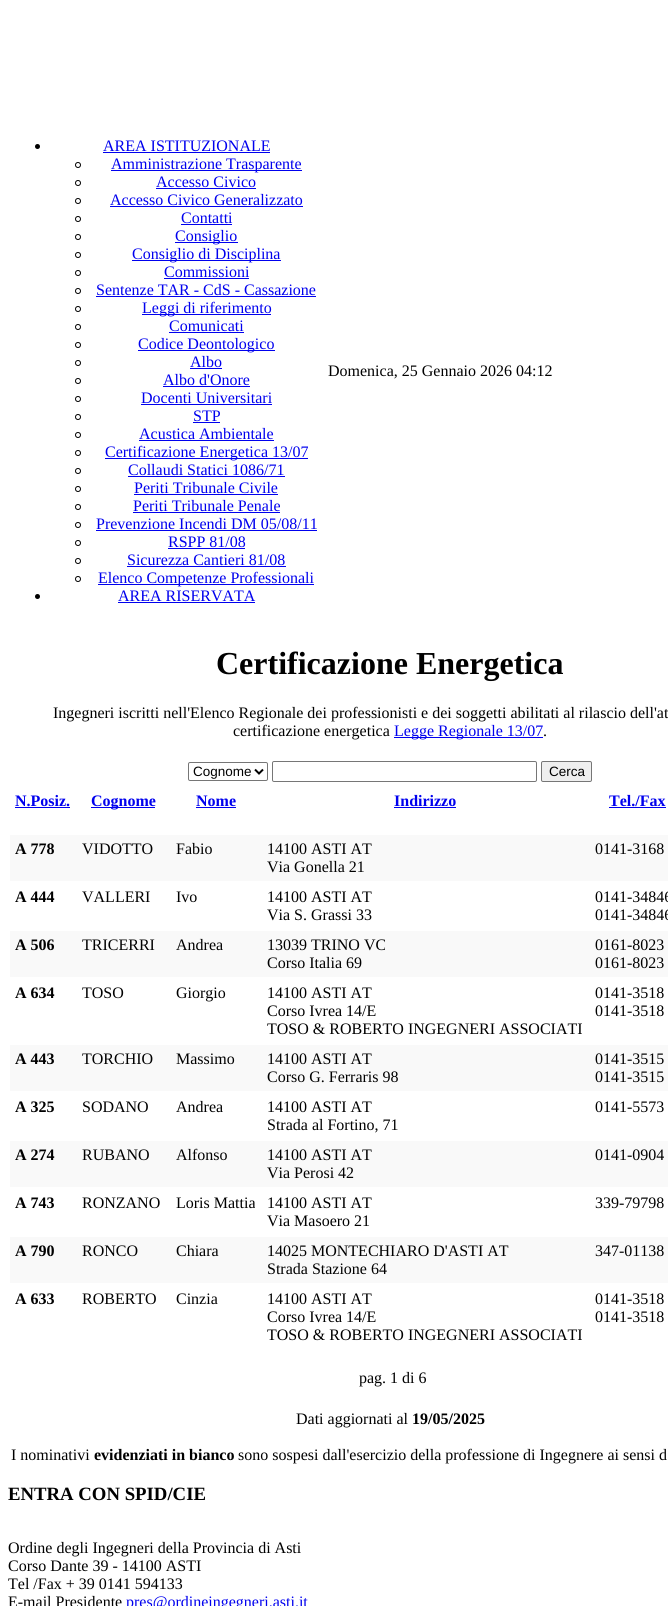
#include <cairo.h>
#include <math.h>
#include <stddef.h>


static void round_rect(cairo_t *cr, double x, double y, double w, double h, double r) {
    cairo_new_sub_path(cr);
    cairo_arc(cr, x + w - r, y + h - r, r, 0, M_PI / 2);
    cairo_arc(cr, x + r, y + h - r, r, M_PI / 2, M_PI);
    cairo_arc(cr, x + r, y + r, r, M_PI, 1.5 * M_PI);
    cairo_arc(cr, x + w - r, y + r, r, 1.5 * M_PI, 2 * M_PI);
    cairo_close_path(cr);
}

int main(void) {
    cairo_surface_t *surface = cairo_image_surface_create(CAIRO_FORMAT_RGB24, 668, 1606);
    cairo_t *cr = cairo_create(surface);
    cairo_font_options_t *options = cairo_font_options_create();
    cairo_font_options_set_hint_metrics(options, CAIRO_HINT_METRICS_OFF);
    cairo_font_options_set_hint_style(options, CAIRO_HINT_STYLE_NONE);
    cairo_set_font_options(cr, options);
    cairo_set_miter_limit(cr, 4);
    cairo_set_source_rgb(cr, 1, 1, 1);
    cairo_paint(cr);
    cairo_set_source_rgb(cr, 0, 0, 0);
    cairo_arc(cr, 37.5, 146.5, 2.5, 0, 2 * M_PI);
    cairo_fill(cr);
    cairo_select_font_face(cr, "Liberation Serif", CAIRO_FONT_SLANT_NORMAL, CAIRO_FONT_WEIGHT_NORMAL);
    cairo_set_font_size(cr, 16);
    cairo_set_source_rgb(cr, 0, 0, 0.933);
    cairo_move_to(cr, 103, 151);
    cairo_show_text(cr, "AREA ISTITUZIONALE");
    cairo_rectangle(cr, 103, 152, 167, 1);
    cairo_fill(cr);
    cairo_arc(cr, 78, 165, 2.5, 0, 2 * M_PI);
    cairo_set_source_rgb(cr, 0, 0, 0);
    cairo_set_line_width(cr, 1);
    cairo_stroke(cr);
    cairo_set_source_rgb(cr, 0, 0, 0.933);
    cairo_rectangle(cr, 111, 170, 191, 1);
    cairo_fill(cr);
    cairo_move_to(cr, 111, 169);
    cairo_show_text(cr, "Amministrazione Trasparente");
    cairo_new_path(cr);
    cairo_arc(cr, 78, 183, 2.5, 0, 2 * M_PI);
    cairo_set_source_rgb(cr, 0, 0, 0);
    cairo_stroke(cr);
    cairo_set_source_rgb(cr, 0, 0, 0.933);
    cairo_move_to(cr, 156, 187);
    cairo_show_text(cr, "Accesso Civico");
    cairo_rectangle(cr, 156, 188, 100, 1);
    cairo_fill(cr);
    cairo_arc(cr, 78, 201, 2.5, 0, 2 * M_PI);
    cairo_set_source_rgb(cr, 0, 0, 0);
    cairo_stroke(cr);
    cairo_set_source_rgb(cr, 0, 0, 0.933);
    cairo_move_to(cr, 110, 205);
    cairo_show_text(cr, "Accesso Civico Generalizzato");
    cairo_rectangle(cr, 110, 206, 193, 1);
    cairo_fill(cr);
    cairo_arc(cr, 78, 219, 2.5, 0, 2 * M_PI);
    cairo_set_source_rgb(cr, 0, 0, 0);
    cairo_stroke(cr);
    cairo_set_source_rgb(cr, 0, 0, 0.933);
    cairo_move_to(cr, 181, 223);
    cairo_show_text(cr, "Contatti");
    cairo_rectangle(cr, 181, 224, 51, 1);
    cairo_fill(cr);
    cairo_arc(cr, 78, 237, 2.5, 0, 2 * M_PI);
    cairo_set_source_rgb(cr, 0, 0, 0);
    cairo_stroke(cr);
    cairo_set_source_rgb(cr, 0, 0, 0.933);
    cairo_rectangle(cr, 175, 242, 63, 1);
    cairo_fill(cr);
    cairo_move_to(cr, 175, 241);
    cairo_show_text(cr, "Consiglio");
    cairo_new_path(cr);
    cairo_arc(cr, 78, 255, 2.5, 0, 2 * M_PI);
    cairo_set_source_rgb(cr, 0, 0, 0);
    cairo_stroke(cr);
    cairo_set_source_rgb(cr, 0, 0, 0.933);
    cairo_rectangle(cr, 132, 260, 149, 1);
    cairo_fill(cr);
    cairo_move_to(cr, 132, 259);
    cairo_show_text(cr, "Consiglio di Disciplina");
    cairo_new_path(cr);
    cairo_arc(cr, 78, 273, 2.5, 0, 2 * M_PI);
    cairo_set_source_rgb(cr, 0, 0, 0);
    cairo_stroke(cr);
    cairo_set_source_rgb(cr, 0, 0, 0.933);
    cairo_move_to(cr, 164, 277);
    cairo_show_text(cr, "Commissioni");
    cairo_rectangle(cr, 164, 278, 85, 1);
    cairo_fill(cr);
    cairo_arc(cr, 78, 291, 2.5, 0, 2 * M_PI);
    cairo_set_source_rgb(cr, 0, 0, 0);
    cairo_stroke(cr);
    cairo_set_source_rgb(cr, 0, 0, 0.933);
    cairo_move_to(cr, 96, 295);
    cairo_show_text(cr, "Sentenze TAR - CdS - Cassazione");
    cairo_rectangle(cr, 96, 296, 220, 1);
    cairo_fill(cr);
    cairo_arc(cr, 78, 309, 2.5, 0, 2 * M_PI);
    cairo_set_source_rgb(cr, 0, 0, 0);
    cairo_stroke(cr);
    cairo_set_source_rgb(cr, 0, 0, 0.933);
    cairo_rectangle(cr, 142, 314, 129, 1);
    cairo_fill(cr);
    cairo_move_to(cr, 142, 313);
    cairo_show_text(cr, "Leggi di riferimento");
    cairo_new_path(cr);
    cairo_arc(cr, 78, 327, 2.5, 0, 2 * M_PI);
    cairo_set_source_rgb(cr, 0, 0, 0);
    cairo_stroke(cr);
    cairo_set_source_rgb(cr, 0, 0, 0.933);
    cairo_move_to(cr, 169, 331);
    cairo_show_text(cr, "Comunicati");
    cairo_rectangle(cr, 169, 332, 75, 1);
    cairo_fill(cr);
    cairo_arc(cr, 78, 345, 2.5, 0, 2 * M_PI);
    cairo_set_source_rgb(cr, 0, 0, 0);
    cairo_stroke(cr);
    cairo_set_source_rgb(cr, 0, 0, 0.933);
    cairo_rectangle(cr, 138, 350, 137, 1);
    cairo_fill(cr);
    cairo_move_to(cr, 138, 349);
    cairo_show_text(cr, "Codice Deontologico");
    cairo_new_path(cr);
    cairo_arc(cr, 78, 363, 2.5, 0, 2 * M_PI);
    cairo_set_source_rgb(cr, 0, 0, 0);
    cairo_stroke(cr);
    cairo_set_source_rgb(cr, 0, 0, 0.933);
    cairo_move_to(cr, 190, 367);
    cairo_show_text(cr, "Albo");
    cairo_rectangle(cr, 190, 368, 32, 1);
    cairo_fill(cr);
    cairo_arc(cr, 78, 381, 2.5, 0, 2 * M_PI);
    cairo_set_source_rgb(cr, 0, 0, 0);
    cairo_stroke(cr);
    cairo_set_source_rgb(cr, 0, 0, 0.933);
    cairo_move_to(cr, 163, 385);
    cairo_show_text(cr, "Albo d'Onore");
    cairo_rectangle(cr, 163, 386, 87, 1);
    cairo_fill(cr);
    cairo_arc(cr, 78, 399, 2.5, 0, 2 * M_PI);
    cairo_set_source_rgb(cr, 0, 0, 0);
    cairo_stroke(cr);
    cairo_set_source_rgb(cr, 0, 0, 0.933);
    cairo_move_to(cr, 141, 403);
    cairo_show_text(cr, "Docenti Universitari");
    cairo_rectangle(cr, 141, 404, 131, 1);
    cairo_fill(cr);
    cairo_arc(cr, 78, 417, 2.5, 0, 2 * M_PI);
    cairo_set_source_rgb(cr, 0, 0, 0);
    cairo_stroke(cr);
    cairo_set_source_rgb(cr, 0, 0, 0.933);
    cairo_move_to(cr, 193, 421);
    cairo_show_text(cr, "STP");
    cairo_rectangle(cr, 193, 422, 27, 1);
    cairo_fill(cr);
    cairo_arc(cr, 78, 435, 2.5, 0, 2 * M_PI);
    cairo_set_source_rgb(cr, 0, 0, 0);
    cairo_stroke(cr);
    cairo_set_source_rgb(cr, 0, 0, 0.933);
    cairo_move_to(cr, 139, 439);
    cairo_show_text(cr, "Acustica Ambientale");
    cairo_rectangle(cr, 139, 440, 135, 1);
    cairo_fill(cr);
    cairo_arc(cr, 78, 453, 2.5, 0, 2 * M_PI);
    cairo_set_source_rgb(cr, 0, 0, 0);
    cairo_stroke(cr);
    cairo_set_source_rgb(cr, 0, 0, 0.933);
    cairo_rectangle(cr, 105, 458, 203, 1);
    cairo_fill(cr);
    cairo_move_to(cr, 105, 457);
    cairo_show_text(cr, "Certificazione Energetica 13/07");
    cairo_new_path(cr);
    cairo_arc(cr, 78, 471, 2.5, 0, 2 * M_PI);
    cairo_set_source_rgb(cr, 0, 0, 0);
    cairo_stroke(cr);
    cairo_set_source_rgb(cr, 0, 0, 0.933);
    cairo_move_to(cr, 128, 475);
    cairo_show_text(cr, "Collaudi Statici 1086/71");
    cairo_rectangle(cr, 128, 476, 157, 1);
    cairo_fill(cr);
    cairo_arc(cr, 78, 489, 2.5, 0, 2 * M_PI);
    cairo_set_source_rgb(cr, 0, 0, 0);
    cairo_stroke(cr);
    cairo_set_source_rgb(cr, 0, 0, 0.933);
    cairo_move_to(cr, 134, 493);
    cairo_show_text(cr, "Periti Tribunale Civile");
    cairo_rectangle(cr, 134, 494, 144, 1);
    cairo_fill(cr);
    cairo_arc(cr, 78, 507, 2.5, 0, 2 * M_PI);
    cairo_set_source_rgb(cr, 0, 0, 0);
    cairo_stroke(cr);
    cairo_set_source_rgb(cr, 0, 0, 0.933);
    cairo_move_to(cr, 133, 511);
    cairo_show_text(cr, "Periti Tribunale Penale");
    cairo_rectangle(cr, 133, 512, 147, 1);
    cairo_fill(cr);
    cairo_arc(cr, 78, 525, 2.5, 0, 2 * M_PI);
    cairo_set_source_rgb(cr, 0, 0, 0);
    cairo_stroke(cr);
    cairo_set_source_rgb(cr, 0, 0, 0.933);
    cairo_move_to(cr, 96, 529);
    cairo_show_text(cr, "Prevenzione Incendi DM 05/08/11");
    cairo_rectangle(cr, 96, 530, 221, 1);
    cairo_fill(cr);
    cairo_arc(cr, 78, 543, 2.5, 0, 2 * M_PI);
    cairo_set_source_rgb(cr, 0, 0, 0);
    cairo_stroke(cr);
    cairo_set_source_rgb(cr, 0, 0, 0.933);
    cairo_move_to(cr, 168, 547);
    cairo_show_text(cr, "RSPP 81/08");
    cairo_rectangle(cr, 168, 548, 77, 1);
    cairo_fill(cr);
    cairo_arc(cr, 78, 561, 2.5, 0, 2 * M_PI);
    cairo_set_source_rgb(cr, 0, 0, 0);
    cairo_stroke(cr);
    cairo_set_source_rgb(cr, 0, 0, 0.933);
    cairo_move_to(cr, 127, 565);
    cairo_show_text(cr, "Sicurezza Cantieri 81/08");
    cairo_rectangle(cr, 127, 566, 159, 1);
    cairo_fill(cr);
    cairo_arc(cr, 78, 579, 2.5, 0, 2 * M_PI);
    cairo_set_source_rgb(cr, 0, 0, 0);
    cairo_stroke(cr);
    cairo_set_source_rgb(cr, 0, 0, 0.933);
    cairo_rectangle(cr, 98, 584, 216, 1);
    cairo_fill(cr);
    cairo_move_to(cr, 98, 583);
    cairo_show_text(cr, "Elenco Competenze Professionali");
    cairo_set_source_rgb(cr, 0, 0, 0);
    cairo_new_path(cr);
    cairo_arc(cr, 37.5, 596.5, 2.5, 0, 2 * M_PI);
    cairo_fill(cr);
    cairo_set_source_rgb(cr, 0, 0, 0.933);
    cairo_move_to(cr, 118, 601);
    cairo_show_text(cr, "AREA RISERVATA");
    cairo_rectangle(cr, 118, 602, 137, 1);
    cairo_fill(cr);
    cairo_set_source_rgb(cr, 0, 0, 0);
    cairo_move_to(cr, 328, 376);
    cairo_show_text(cr, "Domenica, 25 Gennaio 2026 04:12");
    cairo_select_font_face(cr, "Liberation Serif", CAIRO_FONT_SLANT_NORMAL, CAIRO_FONT_WEIGHT_BOLD);
    cairo_set_font_size(cr, 32);
    cairo_move_to(cr, 216, 674);
    cairo_show_text(cr, "Certificazione Energetica");
    cairo_select_font_face(cr, "Liberation Serif", CAIRO_FONT_SLANT_NORMAL, CAIRO_FONT_WEIGHT_NORMAL);
    cairo_set_font_size(cr, 16);
    cairo_move_to(cr, 53, 718);
    cairo_show_text(cr, "Ingegneri iscritti nell'Elenco Regionale dei professionisti e dei soggetti abilitati al rilascio dell'at");
    cairo_move_to(cr, 233, 736);
    cairo_show_text(cr, "certificazione energetica");
    cairo_set_source_rgb(cr, 0, 0, 0.933);
    cairo_rectangle(cr, 394, 737, 149, 1);
    cairo_fill(cr);
    cairo_move_to(cr, 394, 736);
    cairo_show_text(cr, "Legge Regionale 13/07");
    cairo_set_source_rgb(cr, 0, 0, 0);
    cairo_move_to(cr, 543, 736);
    cairo_show_text(cr, ".");
    round_rect(cr, 188.5, 762.5, 79, 18, 1.5);
    cairo_set_source_rgb(cr, 0.463, 0.463, 0.463);
    cairo_stroke(cr);
    cairo_new_path(cr);
    cairo_move_to(cr, 255, 769.5);
    cairo_line_to(cr, 259, 773.5);
    cairo_line_to(cr, 263, 769.5);
    cairo_set_source_rgb(cr, 0, 0, 0);
    cairo_set_line_width(cr, 2);
    cairo_stroke(cr);
    cairo_select_font_face(cr, "Liberation Sans", CAIRO_FONT_SLANT_NORMAL, CAIRO_FONT_WEIGHT_NORMAL);
    cairo_set_font_size(cr, 13.5);
    cairo_move_to(cr, 193, 776);
    cairo_show_text(cr, "Cognome");
    round_rect(cr, 272.5, 761.5, 264, 20, 1.5);
    cairo_set_source_rgb(cr, 0.463, 0.463, 0.463);
    cairo_set_line_width(cr, 1);
    cairo_stroke(cr);
    cairo_set_source_rgb(cr, 0.937, 0.937, 0.937);
    round_rect(cr, 541.5, 761.5, 50, 20, 1.5);
    cairo_fill_preserve(cr);
    cairo_set_source_rgb(cr, 0.463, 0.463, 0.463);
    cairo_stroke(cr);
    cairo_set_source_rgb(cr, 0, 0, 0);
    cairo_move_to(cr, 549, 776);
    cairo_show_text(cr, "Cerca");
    cairo_select_font_face(cr, "Liberation Serif", CAIRO_FONT_SLANT_NORMAL, CAIRO_FONT_WEIGHT_BOLD);
    cairo_set_font_size(cr, 16);
    cairo_set_source_rgb(cr, 0, 0, 0.933);
    cairo_move_to(cr, 15, 806);
    cairo_show_text(cr, "N.Posiz.");
    cairo_rectangle(cr, 15, 807, 55, 1);
    cairo_fill(cr);
    cairo_rectangle(cr, 91, 807, 64, 1);
    cairo_fill(cr);
    cairo_move_to(cr, 91, 806);
    cairo_show_text(cr, "Cognome");
    cairo_move_to(cr, 196, 806);
    cairo_show_text(cr, "Nome");
    cairo_rectangle(cr, 196, 807, 40, 1);
    cairo_fill(cr);
    cairo_move_to(cr, 394, 806);
    cairo_show_text(cr, "Indirizzo");
    cairo_rectangle(cr, 394, 807, 62, 1);
    cairo_fill(cr);
    cairo_move_to(cr, 609, 806);
    cairo_show_text(cr, "Tel./Fax");
    cairo_rectangle(cr, 609, 807, 57, 1);
    cairo_fill(cr);
    cairo_set_source_rgb(cr, 0.976, 0.976, 0.976);
    cairo_rectangle(cr, 10, 835, 658, 46);
    cairo_fill(cr);
    cairo_set_source_rgb(cr, 0, 0, 0);
    cairo_move_to(cr, 15, 854);
    cairo_show_text(cr, "A 778");
    cairo_select_font_face(cr, "Liberation Serif", CAIRO_FONT_SLANT_NORMAL, CAIRO_FONT_WEIGHT_NORMAL);
    cairo_move_to(cr, 82, 854);
    cairo_show_text(cr, "VIDOTTO");
    cairo_move_to(cr, 176, 854);
    cairo_show_text(cr, "Fabio");
    cairo_move_to(cr, 267, 854);
    cairo_show_text(cr, "14100 ASTI AT");
    cairo_move_to(cr, 267, 872);
    cairo_show_text(cr, "Via Gonella 21");
    cairo_move_to(cr, 595, 854);
    cairo_show_text(cr, "0141-3168");
    cairo_select_font_face(cr, "Liberation Serif", CAIRO_FONT_SLANT_NORMAL, CAIRO_FONT_WEIGHT_BOLD);
    cairo_move_to(cr, 15, 902);
    cairo_show_text(cr, "A 444");
    cairo_select_font_face(cr, "Liberation Serif", CAIRO_FONT_SLANT_NORMAL, CAIRO_FONT_WEIGHT_NORMAL);
    cairo_move_to(cr, 82, 902);
    cairo_show_text(cr, "VALLERI");
    cairo_move_to(cr, 176, 902);
    cairo_show_text(cr, "Ivo");
    cairo_move_to(cr, 267, 902);
    cairo_show_text(cr, "14100 ASTI AT");
    cairo_move_to(cr, 267, 920);
    cairo_show_text(cr, "Via S. Grassi 33");
    cairo_move_to(cr, 595, 902);
    cairo_show_text(cr, "0141-34846");
    cairo_move_to(cr, 595, 920);
    cairo_show_text(cr, "0141-34846");
    cairo_set_source_rgb(cr, 0.976, 0.976, 0.976);
    cairo_rectangle(cr, 10, 931, 658, 46);
    cairo_fill(cr);
    cairo_select_font_face(cr, "Liberation Serif", CAIRO_FONT_SLANT_NORMAL, CAIRO_FONT_WEIGHT_BOLD);
    cairo_set_source_rgb(cr, 0, 0, 0);
    cairo_move_to(cr, 15, 950);
    cairo_show_text(cr, "A 506");
    cairo_select_font_face(cr, "Liberation Serif", CAIRO_FONT_SLANT_NORMAL, CAIRO_FONT_WEIGHT_NORMAL);
    cairo_move_to(cr, 82, 950);
    cairo_show_text(cr, "TRICERRI");
    cairo_move_to(cr, 176, 950);
    cairo_show_text(cr, "Andrea");
    cairo_move_to(cr, 267, 950);
    cairo_show_text(cr, "13039 TRINO VC");
    cairo_move_to(cr, 267, 968);
    cairo_show_text(cr, "Corso Italia 69");
    cairo_move_to(cr, 595, 950);
    cairo_show_text(cr, "0161-8023");
    cairo_move_to(cr, 595, 968);
    cairo_show_text(cr, "0161-8023");
    cairo_select_font_face(cr, "Liberation Serif", CAIRO_FONT_SLANT_NORMAL, CAIRO_FONT_WEIGHT_BOLD);
    cairo_move_to(cr, 15, 998);
    cairo_show_text(cr, "A 634");
    cairo_select_font_face(cr, "Liberation Serif", CAIRO_FONT_SLANT_NORMAL, CAIRO_FONT_WEIGHT_NORMAL);
    cairo_move_to(cr, 82, 998);
    cairo_show_text(cr, "TOSO");
    cairo_move_to(cr, 176, 998);
    cairo_show_text(cr, "Giorgio");
    cairo_move_to(cr, 267, 998);
    cairo_show_text(cr, "14100 ASTI AT");
    cairo_move_to(cr, 267, 1016);
    cairo_show_text(cr, "Corso Ivrea 14/E");
    cairo_move_to(cr, 267, 1034);
    cairo_show_text(cr, "TOSO & ROBERTO INGEGNERI ASSOCIATI");
    cairo_move_to(cr, 595, 998);
    cairo_show_text(cr, "0141-3518");
    cairo_move_to(cr, 595, 1016);
    cairo_show_text(cr, "0141-3518");
    cairo_set_source_rgb(cr, 0.976, 0.976, 0.976);
    cairo_rectangle(cr, 10, 1045, 658, 46);
    cairo_fill(cr);
    cairo_select_font_face(cr, "Liberation Serif", CAIRO_FONT_SLANT_NORMAL, CAIRO_FONT_WEIGHT_BOLD);
    cairo_set_source_rgb(cr, 0, 0, 0);
    cairo_move_to(cr, 15, 1064);
    cairo_show_text(cr, "A 443");
    cairo_select_font_face(cr, "Liberation Serif", CAIRO_FONT_SLANT_NORMAL, CAIRO_FONT_WEIGHT_NORMAL);
    cairo_move_to(cr, 82, 1064);
    cairo_show_text(cr, "TORCHIO");
    cairo_move_to(cr, 176, 1064);
    cairo_show_text(cr, "Massimo");
    cairo_move_to(cr, 267, 1064);
    cairo_show_text(cr, "14100 ASTI AT");
    cairo_move_to(cr, 267, 1082);
    cairo_show_text(cr, "Corso G. Ferraris 98");
    cairo_move_to(cr, 595, 1064);
    cairo_show_text(cr, "0141-3515");
    cairo_move_to(cr, 595, 1082);
    cairo_show_text(cr, "0141-3515");
    cairo_select_font_face(cr, "Liberation Serif", CAIRO_FONT_SLANT_NORMAL, CAIRO_FONT_WEIGHT_BOLD);
    cairo_move_to(cr, 15, 1112);
    cairo_show_text(cr, "A 325");
    cairo_select_font_face(cr, "Liberation Serif", CAIRO_FONT_SLANT_NORMAL, CAIRO_FONT_WEIGHT_NORMAL);
    cairo_move_to(cr, 82, 1112);
    cairo_show_text(cr, "SODANO");
    cairo_move_to(cr, 176, 1112);
    cairo_show_text(cr, "Andrea");
    cairo_move_to(cr, 267, 1112);
    cairo_show_text(cr, "14100 ASTI AT");
    cairo_move_to(cr, 267, 1130);
    cairo_show_text(cr, "Strada al Fortino, 71");
    cairo_move_to(cr, 595, 1112);
    cairo_show_text(cr, "0141-5573");
    cairo_set_source_rgb(cr, 0.976, 0.976, 0.976);
    cairo_rectangle(cr, 10, 1141, 658, 46);
    cairo_fill(cr);
    cairo_select_font_face(cr, "Liberation Serif", CAIRO_FONT_SLANT_NORMAL, CAIRO_FONT_WEIGHT_BOLD);
    cairo_set_source_rgb(cr, 0, 0, 0);
    cairo_move_to(cr, 15, 1160);
    cairo_show_text(cr, "A 274");
    cairo_select_font_face(cr, "Liberation Serif", CAIRO_FONT_SLANT_NORMAL, CAIRO_FONT_WEIGHT_NORMAL);
    cairo_move_to(cr, 82, 1160);
    cairo_show_text(cr, "RUBANO");
    cairo_move_to(cr, 176, 1160);
    cairo_show_text(cr, "Alfonso");
    cairo_move_to(cr, 267, 1160);
    cairo_show_text(cr, "14100 ASTI AT");
    cairo_move_to(cr, 267, 1178);
    cairo_show_text(cr, "Via Perosi 42");
    cairo_move_to(cr, 595, 1160);
    cairo_show_text(cr, "0141-0904");
    cairo_select_font_face(cr, "Liberation Serif", CAIRO_FONT_SLANT_NORMAL, CAIRO_FONT_WEIGHT_BOLD);
    cairo_move_to(cr, 15, 1208);
    cairo_show_text(cr, "A 743");
    cairo_select_font_face(cr, "Liberation Serif", CAIRO_FONT_SLANT_NORMAL, CAIRO_FONT_WEIGHT_NORMAL);
    cairo_move_to(cr, 82, 1208);
    cairo_show_text(cr, "RONZANO");
    cairo_move_to(cr, 176, 1208);
    cairo_show_text(cr, "Loris Mattia");
    cairo_move_to(cr, 267, 1208);
    cairo_show_text(cr, "14100 ASTI AT");
    cairo_move_to(cr, 267, 1226);
    cairo_show_text(cr, "Via Masoero 21");
    cairo_move_to(cr, 595, 1208);
    cairo_show_text(cr, "339-79798");
    cairo_set_source_rgb(cr, 0.976, 0.976, 0.976);
    cairo_rectangle(cr, 10, 1237, 658, 46);
    cairo_fill(cr);
    cairo_select_font_face(cr, "Liberation Serif", CAIRO_FONT_SLANT_NORMAL, CAIRO_FONT_WEIGHT_BOLD);
    cairo_set_source_rgb(cr, 0, 0, 0);
    cairo_move_to(cr, 15, 1256);
    cairo_show_text(cr, "A 790");
    cairo_select_font_face(cr, "Liberation Serif", CAIRO_FONT_SLANT_NORMAL, CAIRO_FONT_WEIGHT_NORMAL);
    cairo_move_to(cr, 82, 1256);
    cairo_show_text(cr, "RONCO");
    cairo_move_to(cr, 176, 1256);
    cairo_show_text(cr, "Chiara");
    cairo_move_to(cr, 267, 1256);
    cairo_show_text(cr, "14025 MONTECHIARO D'ASTI AT");
    cairo_move_to(cr, 267, 1274);
    cairo_show_text(cr, "Strada Stazione 64");
    cairo_move_to(cr, 595, 1256);
    cairo_show_text(cr, "347-01138");
    cairo_select_font_face(cr, "Liberation Serif", CAIRO_FONT_SLANT_NORMAL, CAIRO_FONT_WEIGHT_BOLD);
    cairo_move_to(cr, 15, 1304);
    cairo_show_text(cr, "A 633");
    cairo_select_font_face(cr, "Liberation Serif", CAIRO_FONT_SLANT_NORMAL, CAIRO_FONT_WEIGHT_NORMAL);
    cairo_move_to(cr, 82, 1304);
    cairo_show_text(cr, "ROBERTO");
    cairo_move_to(cr, 176, 1304);
    cairo_show_text(cr, "Cinzia");
    cairo_move_to(cr, 267, 1304);
    cairo_show_text(cr, "14100 ASTI AT");
    cairo_move_to(cr, 267, 1322);
    cairo_show_text(cr, "Corso Ivrea 14/E");
    cairo_move_to(cr, 267, 1340);
    cairo_show_text(cr, "TOSO & ROBERTO INGEGNERI ASSOCIATI");
    cairo_move_to(cr, 595, 1304);
    cairo_show_text(cr, "0141-3518");
    cairo_move_to(cr, 595, 1322);
    cairo_show_text(cr, "0141-3518");
    cairo_move_to(cr, 359, 1383);
    cairo_show_text(cr, "pag. 1 di 6");
    cairo_move_to(cr, 296, 1424);
    cairo_show_text(cr, "Dati aggiornati al");
    cairo_select_font_face(cr, "Liberation Serif", CAIRO_FONT_SLANT_NORMAL, CAIRO_FONT_WEIGHT_BOLD);
    cairo_move_to(cr, 412, 1424);
    cairo_show_text(cr, "19/05/2025");
    cairo_select_font_face(cr, "Liberation Serif", CAIRO_FONT_SLANT_NORMAL, CAIRO_FONT_WEIGHT_NORMAL);
    cairo_move_to(cr, 11, 1460);
    cairo_show_text(cr, "I nominativi");
    cairo_select_font_face(cr, "Liberation Serif", CAIRO_FONT_SLANT_NORMAL, CAIRO_FONT_WEIGHT_BOLD);
    cairo_move_to(cr, 94, 1460);
    cairo_show_text(cr, "evidenziati in bianco");
    cairo_select_font_face(cr, "Liberation Serif", CAIRO_FONT_SLANT_NORMAL, CAIRO_FONT_WEIGHT_NORMAL);
    cairo_move_to(cr, 238, 1460);
    cairo_show_text(cr, "sono sospesi dall'esercizio della professione di Ingegnere ai sensi d");
    cairo_select_font_face(cr, "Liberation Serif", CAIRO_FONT_SLANT_NORMAL, CAIRO_FONT_WEIGHT_BOLD);
    cairo_set_font_size(cr, 18.75);
    cairo_move_to(cr, 8, 1500);
    cairo_show_text(cr, "ENTRA CON SPID/CIE");
    cairo_select_font_face(cr, "Liberation Serif", CAIRO_FONT_SLANT_NORMAL, CAIRO_FONT_WEIGHT_NORMAL);
    cairo_set_font_size(cr, 16);
    cairo_move_to(cr, 8, 1553);
    cairo_show_text(cr, "Ordine degli Ingegneri della Provincia di Asti");
    cairo_move_to(cr, 8, 1571);
    cairo_show_text(cr, "Corso Dante 39 - 14100 ASTI");
    cairo_move_to(cr, 8, 1589);
    cairo_show_text(cr, "Tel /Fax + 39 0141 594133");
    cairo_move_to(cr, 8, 1607);
    cairo_show_text(cr, "E-mail Presidente");
    cairo_set_source_rgb(cr, 0, 0, 0.933);
    cairo_move_to(cr, 126, 1607);
    cairo_show_text(cr, "pres@ordineingegneri.asti.it");
    cairo_surface_write_to_png(surface, "page.png");
    cairo_font_options_destroy(options);
    cairo_destroy(cr);
    cairo_surface_destroy(surface);
    return 0;
}
